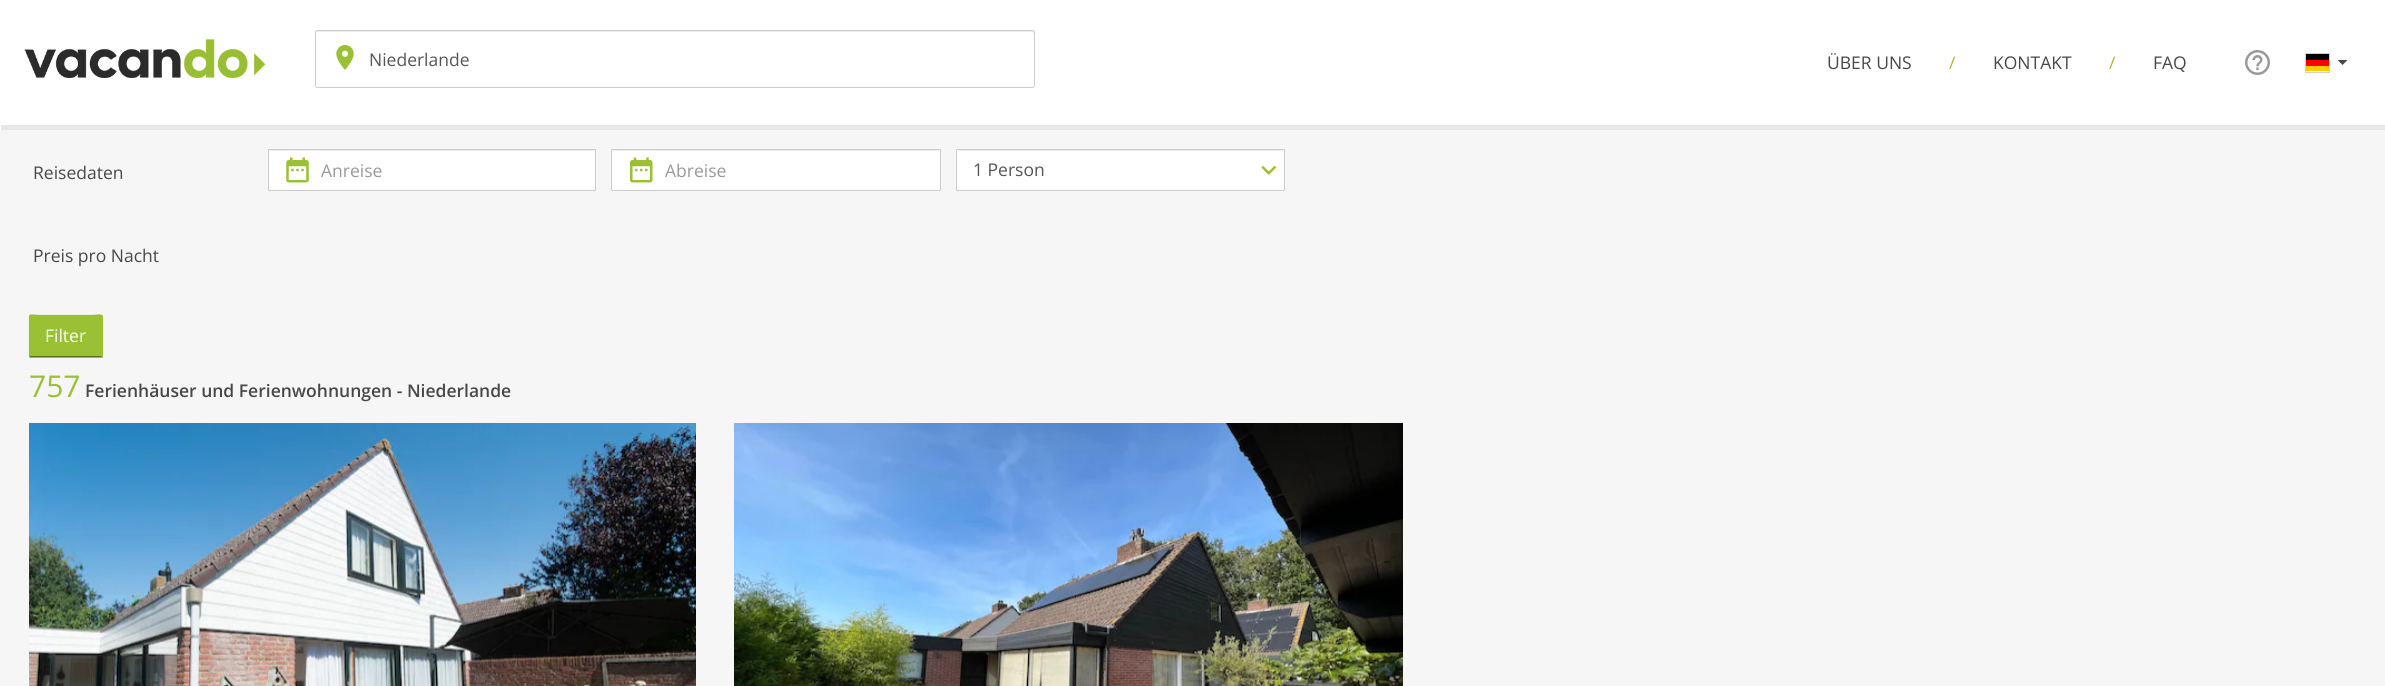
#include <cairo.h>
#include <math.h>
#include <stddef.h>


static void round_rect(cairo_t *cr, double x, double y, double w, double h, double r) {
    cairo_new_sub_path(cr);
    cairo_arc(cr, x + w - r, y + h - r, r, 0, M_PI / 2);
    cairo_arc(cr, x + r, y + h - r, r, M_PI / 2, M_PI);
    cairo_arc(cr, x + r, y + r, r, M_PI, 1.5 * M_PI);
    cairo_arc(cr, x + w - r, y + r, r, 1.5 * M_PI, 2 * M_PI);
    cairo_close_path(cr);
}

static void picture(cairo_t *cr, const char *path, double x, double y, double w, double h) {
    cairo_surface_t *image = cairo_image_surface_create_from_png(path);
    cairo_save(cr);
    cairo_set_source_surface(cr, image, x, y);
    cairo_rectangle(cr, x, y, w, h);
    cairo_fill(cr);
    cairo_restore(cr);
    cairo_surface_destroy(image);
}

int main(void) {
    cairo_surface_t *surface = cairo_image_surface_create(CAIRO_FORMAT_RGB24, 2385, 686);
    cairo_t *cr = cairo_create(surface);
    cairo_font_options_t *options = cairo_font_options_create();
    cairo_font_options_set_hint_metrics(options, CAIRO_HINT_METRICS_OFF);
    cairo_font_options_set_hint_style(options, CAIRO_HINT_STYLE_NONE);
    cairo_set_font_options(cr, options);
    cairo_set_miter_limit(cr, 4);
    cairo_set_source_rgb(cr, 0.961, 0.961, 0.961);
    cairo_paint(cr);
    cairo_set_source_rgb(cr, 1, 1, 1);
    round_rect(cr, 0, 0, 2385, 130, 1);
    cairo_fill(cr);
    cairo_set_source_rgb(cr, 0.906, 0.906, 0.906);
    cairo_rectangle(cr, 1, 125, 2384, 5);
    cairo_fill(cr);
    picture(cr, "img1.png", 24, 39, 242, 39);
    cairo_set_source_rgb(cr, 0.925, 0.925, 0.925);
    cairo_new_path(cr);
    cairo_move_to(cr, 318, 32);
    cairo_line_to(cr, 1032, 32);
    cairo_curve_to(cr, 1033, 32, 1034, 33, 1034, 34);
    cairo_line_to(cr, 1034, 31);
    cairo_line_to(cr, 317, 31);
    cairo_curve_to(cr, 316, 32, 316, 33, 316, 34);
    cairo_curve_to(cr, 316, 33, 317, 32, 318, 32);
    cairo_close_path(cr);
    cairo_fill(cr);
    round_rect(cr, 315.5, 30.5, 719, 57, 2);
    cairo_set_source_rgb(cr, 0.8, 0.8, 0.8);
    cairo_set_line_width(cr, 1);
    cairo_stroke(cr);
    picture(cr, "img2.png", 336, 45, 18, 25);
    cairo_select_font_face(cr, "Open Sans", CAIRO_FONT_SLANT_NORMAL, CAIRO_FONT_WEIGHT_NORMAL);
    cairo_set_font_size(cr, 17.5);
    cairo_set_source_rgb(cr, 0.333, 0.333, 0.333);
    cairo_move_to(cr, 369, 66);
    cairo_show_text(cr, "Niederlande");
    cairo_set_source_rgb(cr, 0.282, 0.282, 0.282);
    cairo_move_to(cr, 1827, 69);
    cairo_show_text(cr, "ÜBER UNS");
    cairo_set_source_rgb(cr, 0.604, 0.753, 0.2);
    cairo_move_to(cr, 1949, 69);
    cairo_show_text(cr, "/");
    cairo_set_source_rgb(cr, 0.282, 0.282, 0.282);
    cairo_move_to(cr, 1993, 69);
    cairo_show_text(cr, "KONTAKT");
    cairo_set_source_rgb(cr, 0.604, 0.753, 0.2);
    cairo_move_to(cr, 2109, 69);
    cairo_show_text(cr, "/");
    cairo_set_source_rgb(cr, 0.282, 0.282, 0.282);
    cairo_move_to(cr, 2153, 69);
    cairo_show_text(cr, "FAQ");
    picture(cr, "img3.png", 2245, 50, 25, 25);
    cairo_rectangle(cr, 2305.5, 53.5, 24, 19);
    cairo_set_source_rgb(cr, 0.816, 0.816, 0.816);
    cairo_stroke(cr);
    cairo_set_source_rgb(cr, 0, 0, 0);
    cairo_rectangle(cr, 2306, 54, 23, 6);
    cairo_fill(cr);
    cairo_set_source_rgb(cr, 1, 0, 0);
    cairo_rectangle(cr, 2306, 60, 23, 6);
    cairo_fill(cr);
    cairo_set_source_rgb(cr, 1, 0.8, 0);
    cairo_rectangle(cr, 2306, 66, 23, 5);
    cairo_fill(cr);
    cairo_set_source_rgb(cr, 0.282, 0.282, 0.282);
    cairo_new_path(cr);
    cairo_move_to(cr, 2337.5, 60);
    cairo_line_to(cr, 2347.5, 60);
    cairo_line_to(cr, 2342.5, 65);
    cairo_close_path(cr);
    cairo_fill(cr);
    cairo_move_to(cr, 33, 179);
    cairo_show_text(cr, "Reisedaten");
    cairo_set_source_rgb(cr, 1, 1, 1);
    round_rect(cr, 268, 149, 328, 42, 1);
    cairo_fill(cr);
    cairo_set_source_rgb(cr, 0.925, 0.925, 0.925);
    cairo_rectangle(cr, 269, 150, 326, 1);
    cairo_fill(cr);
    round_rect(cr, 268.5, 149.5, 327, 41, 0.5);
    cairo_set_source_rgb(cr, 0.8, 0.8, 0.8);
    cairo_stroke(cr);
    picture(cr, "img4.png", 286, 157, 23, 26);
    cairo_set_source_rgb(cr, 0.6, 0.6, 0.6);
    cairo_move_to(cr, 321, 177);
    cairo_show_text(cr, "Anreise");
    cairo_set_source_rgb(cr, 1, 1, 1);
    round_rect(cr, 611, 149, 330, 42, 1);
    cairo_fill(cr);
    cairo_set_source_rgb(cr, 0.925, 0.925, 0.925);
    cairo_rectangle(cr, 613, 150, 327, 1);
    cairo_fill(cr);
    round_rect(cr, 611.5, 149.5, 329, 41, 0.5);
    cairo_set_source_rgb(cr, 0.8, 0.8, 0.8);
    cairo_stroke(cr);
    picture(cr, "img5.png", 630, 157, 23, 26);
    cairo_set_source_rgb(cr, 0.6, 0.6, 0.6);
    cairo_move_to(cr, 665, 177);
    cairo_show_text(cr, "Abreise");
    cairo_set_source_rgb(cr, 1, 1, 1);
    round_rect(cr, 956, 149, 329, 42, 1);
    cairo_fill(cr);
    cairo_set_source_rgb(cr, 0.925, 0.925, 0.925);
    cairo_rectangle(cr, 958, 150, 326, 1);
    cairo_fill(cr);
    round_rect(cr, 956.5, 149.5, 328, 41, 0.5);
    cairo_set_source_rgb(cr, 0.8, 0.8, 0.8);
    cairo_stroke(cr);
    cairo_set_source_rgb(cr, 0.333, 0.333, 0.333);
    cairo_move_to(cr, 973, 176);
    cairo_show_text(cr, "1 Person");
    picture(cr, "img6.png", 1261, 165, 16, 10);
    cairo_set_source_rgb(cr, 0.282, 0.282, 0.282);
    cairo_move_to(cr, 33, 262);
    cairo_show_text(cr, "Preis pro Nacht");
    cairo_set_source_rgb(cr, 0.604, 0.753, 0.2);
    round_rect(cr, 29, 315, 74, 43, 1);
    cairo_fill(cr);
    cairo_set_source_rgb(cr, 0.349, 0.435, 0.118);
    cairo_rectangle(cr, 30, 356, 72, 1);
    cairo_fill(cr);
    cairo_new_path(cr);
    cairo_move_to(cr, 29.5, 356.5);
    cairo_line_to(cr, 29.5, 323);
    cairo_curve_to(cr, 29.5, 312, 28, 315.5, 42, 315.5);
    cairo_line_to(cr, 89.5, 315.5);
    cairo_curve_to(cr, 103.5, 315.5, 102, 312, 102, 323);
    cairo_line_to(cr, 101.5, 356.5);
    cairo_set_source_rgb(cr, 0.604, 0.753, 0.2);
    cairo_set_line_width(cr, 1.2);
    cairo_stroke(cr);
    cairo_set_source_rgb(cr, 1, 1, 1);
    cairo_move_to(cr, 45, 342);
    cairo_show_text(cr, "Filter");
    cairo_set_font_size(cr, 30);
    cairo_set_source_rgb(cr, 0.604, 0.753, 0.2);
    cairo_move_to(cr, 29, 397);
    cairo_show_text(cr, "757");
    cairo_select_font_face(cr, "Open Sans SemiBold", CAIRO_FONT_SLANT_NORMAL, CAIRO_FONT_WEIGHT_NORMAL);
    cairo_set_font_size(cr, 17.5);
    cairo_set_source_rgb(cr, 0.282, 0.282, 0.282);
    cairo_move_to(cr, 85, 397);
    cairo_show_text(cr, "Ferienhäuser und Ferienwohnungen - Niederlande");
    picture(cr, "img7.png", 29, 423, 667, 263);
    picture(cr, "img8.png", 734, 423, 669, 263);
    cairo_surface_write_to_png(surface, "page.png");
    cairo_font_options_destroy(options);
    cairo_destroy(cr);
    cairo_surface_destroy(surface);
    return 0;
}
